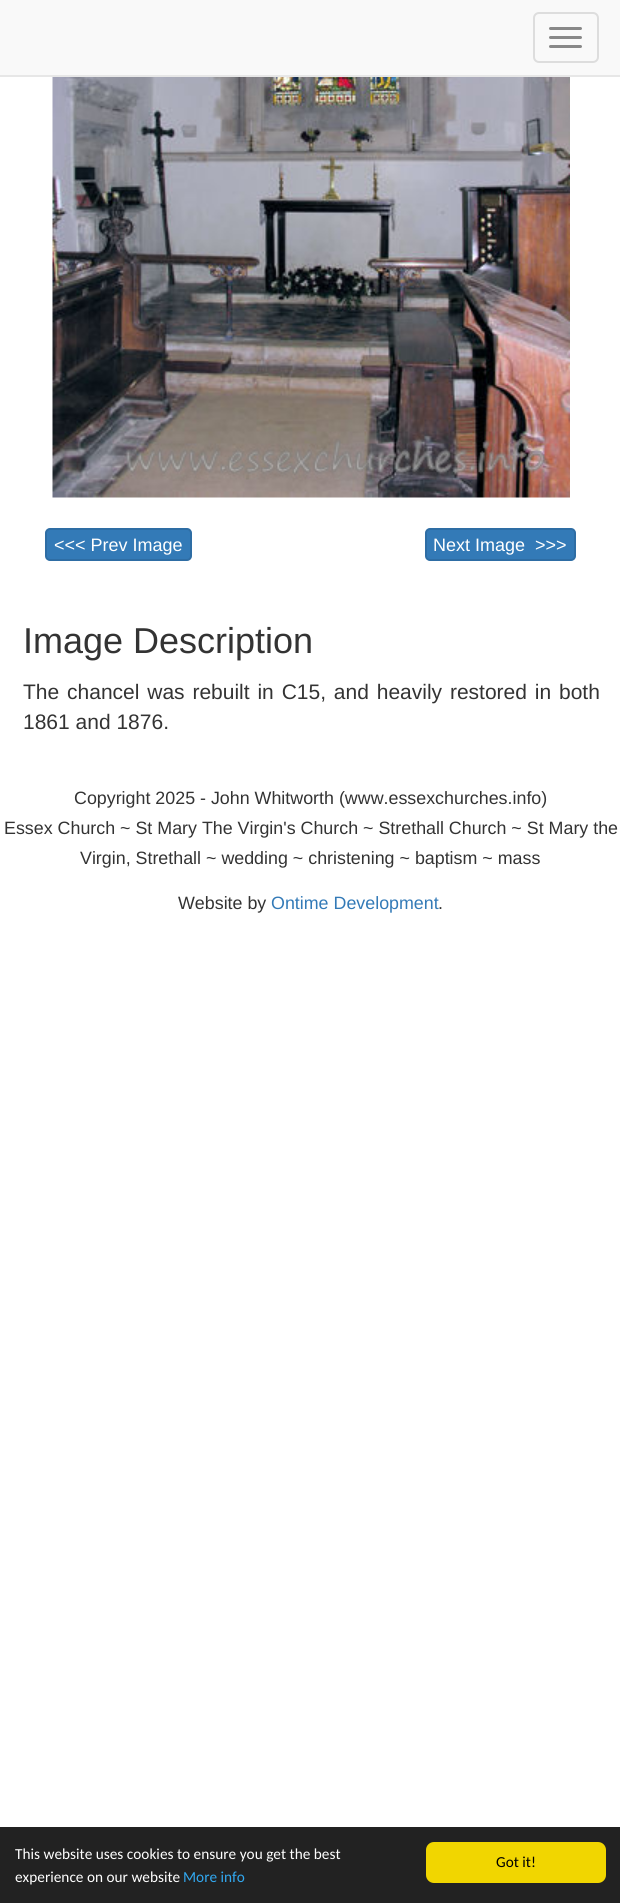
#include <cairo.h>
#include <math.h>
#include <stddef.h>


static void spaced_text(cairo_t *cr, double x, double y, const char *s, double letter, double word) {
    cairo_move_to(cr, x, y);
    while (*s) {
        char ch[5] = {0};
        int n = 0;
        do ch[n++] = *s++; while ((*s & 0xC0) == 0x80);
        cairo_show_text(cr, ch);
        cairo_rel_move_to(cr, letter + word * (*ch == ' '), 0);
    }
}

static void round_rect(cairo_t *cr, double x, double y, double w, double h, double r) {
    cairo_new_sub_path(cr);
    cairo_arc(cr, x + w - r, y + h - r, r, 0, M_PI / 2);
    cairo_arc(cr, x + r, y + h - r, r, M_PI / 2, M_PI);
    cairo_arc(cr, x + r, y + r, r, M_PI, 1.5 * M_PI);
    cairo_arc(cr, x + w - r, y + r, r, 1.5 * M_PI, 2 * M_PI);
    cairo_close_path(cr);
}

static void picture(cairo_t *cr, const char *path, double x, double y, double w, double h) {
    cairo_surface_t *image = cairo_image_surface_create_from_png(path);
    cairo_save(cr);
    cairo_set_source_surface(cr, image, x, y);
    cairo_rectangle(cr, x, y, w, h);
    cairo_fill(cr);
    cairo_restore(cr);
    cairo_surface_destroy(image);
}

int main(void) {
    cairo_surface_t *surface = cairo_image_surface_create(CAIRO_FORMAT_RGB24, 620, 1903);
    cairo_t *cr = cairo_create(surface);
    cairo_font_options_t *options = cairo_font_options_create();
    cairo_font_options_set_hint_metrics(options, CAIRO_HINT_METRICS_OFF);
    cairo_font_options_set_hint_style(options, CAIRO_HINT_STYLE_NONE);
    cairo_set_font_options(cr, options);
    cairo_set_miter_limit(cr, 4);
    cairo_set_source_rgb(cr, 1, 1, 1);
    cairo_paint(cr);
    cairo_set_source_rgb(cr, 0.973, 0.973, 0.973);
    cairo_rectangle(cr, 0, 0, 620, 75);
    cairo_fill(cr);
    cairo_set_source_rgb(cr, 0.906, 0.906, 0.906);
    cairo_rectangle(cr, 0, 75, 620, 2);
    cairo_fill(cr);
    round_rect(cr, 534, 13, 64, 49, 5);
    cairo_set_source_rgb(cr, 0.867, 0.867, 0.867);
    cairo_stroke(cr);
    cairo_set_source_rgb(cr, 0.533, 0.533, 0.533);
    round_rect(cr, 549, 27, 33, 3, 1.5);
    cairo_fill(cr);
    round_rect(cr, 549, 36, 33, 3, 1.5);
    cairo_fill(cr);
    round_rect(cr, 549, 45, 33, 3, 1.5);
    cairo_fill(cr);
    picture(cr, "img1.png", 52, 77, 518, 421);
    cairo_set_source_rgb(cr, 0.2, 0.478, 0.718);
    round_rect(cr, 46, 529, 145, 31, 4);
    cairo_fill_preserve(cr);
    cairo_set_source_rgb(cr, 0.18, 0.427, 0.643);
    cairo_stroke(cr);
    cairo_select_font_face(cr, "Liberation Sans", CAIRO_FONT_SLANT_NORMAL, CAIRO_FONT_WEIGHT_NORMAL);
    cairo_set_font_size(cr, 18);
    cairo_set_source_rgb(cr, 1, 1, 1);
    cairo_move_to(cr, 54, 551);
    cairo_show_text(cr, "<<< Prev Image");
    cairo_set_source_rgb(cr, 0.2, 0.478, 0.718);
    round_rect(cr, 426, 529, 149, 31, 4);
    cairo_fill_preserve(cr);
    cairo_set_source_rgb(cr, 0.18, 0.427, 0.643);
    cairo_stroke(cr);
    cairo_set_source_rgb(cr, 1, 1, 1);
    cairo_move_to(cr, 433, 551);
    cairo_show_text(cr, "Next Image  >>>");
    cairo_set_font_size(cr, 36);
    cairo_set_source_rgb(cr, 0.2, 0.2, 0.2);
    cairo_move_to(cr, 23, 653);
    cairo_show_text(cr, "Image Description");
    cairo_set_font_size(cr, 21);
    spaced_text(cr, 23, 699, "The chancel was rebuilt in C15, and heavily restored in both", 0, 2);
    cairo_move_to(cr, 23, 729);
    cairo_show_text(cr, "1861 and 1876.");
    cairo_set_font_size(cr, 17.85);
    cairo_move_to(cr, 74, 804);
    cairo_show_text(cr, "Copyright 2025 - John Whitworth (www.essexchurches.info)");
    cairo_move_to(cr, 4, 834);
    cairo_show_text(cr, "Essex Church ~ St Mary The Virgin's Church ~ Strethall Church ~ St Mary the");
    cairo_move_to(cr, 80, 864);
    cairo_show_text(cr, "Virgin, Strethall ~ wedding ~ christening ~ baptism ~ mass");
    cairo_move_to(cr, 178, 909);
    cairo_show_text(cr, "Website by");
    cairo_set_source_rgb(cr, 0.2, 0.478, 0.718);
    cairo_move_to(cr, 271, 909);
    cairo_show_text(cr, "Ontime Development");
    cairo_set_source_rgb(cr, 0.2, 0.2, 0.2);
    cairo_move_to(cr, 438, 909);
    cairo_show_text(cr, ".");
    cairo_set_source_rgb(cr, 0.133, 0.133, 0.133);
    cairo_rectangle(cr, 0, 1827, 620, 76);
    cairo_fill(cr);
    cairo_select_font_face(cr, "Carlito", CAIRO_FONT_SLANT_NORMAL, CAIRO_FONT_WEIGHT_NORMAL);
    cairo_set_font_size(cr, 15.3);
    cairo_set_source_rgb(cr, 1, 1, 1);
    cairo_move_to(cr, 15, 1859);
    cairo_show_text(cr, "This website uses cookies to ensure you get the best");
    cairo_move_to(cr, 15, 1882);
    cairo_show_text(cr, "experience on our website");
    cairo_set_source_rgb(cr, 0.192, 0.659, 0.941);
    cairo_move_to(cr, 183, 1882);
    cairo_show_text(cr, "More info");
    cairo_set_source_rgb(cr, 0.945, 0.839, 0);
    round_rect(cr, 426, 1842, 180, 41, 8);
    cairo_fill(cr);
    cairo_set_source_rgb(cr, 0, 0, 0);
    cairo_move_to(cr, 496, 1867);
    cairo_show_text(cr, "Got it!");
    cairo_surface_write_to_png(surface, "page.png");
    cairo_font_options_destroy(options);
    cairo_destroy(cr);
    cairo_surface_destroy(surface);
    return 0;
}
